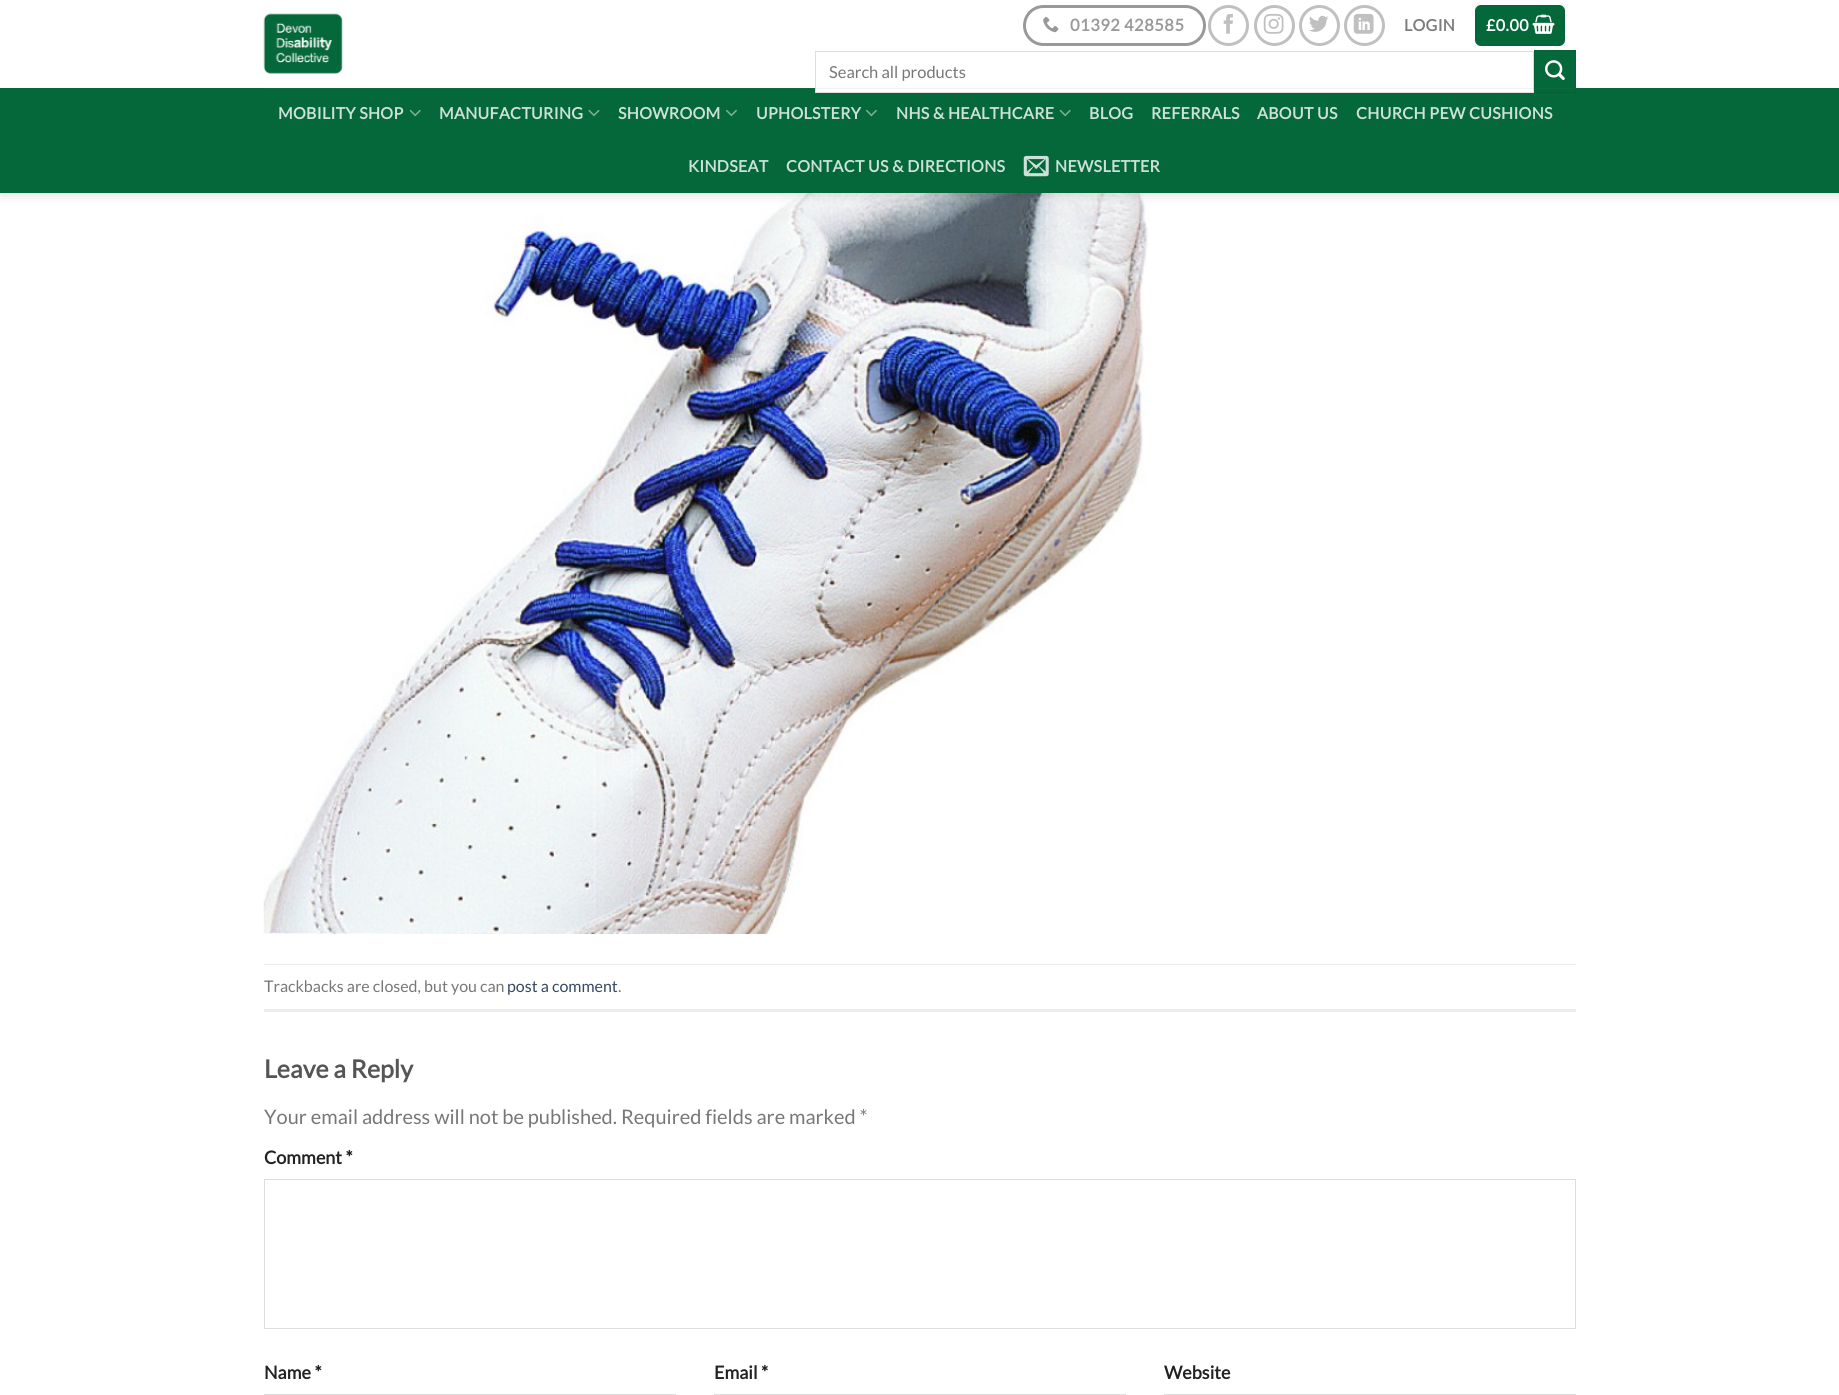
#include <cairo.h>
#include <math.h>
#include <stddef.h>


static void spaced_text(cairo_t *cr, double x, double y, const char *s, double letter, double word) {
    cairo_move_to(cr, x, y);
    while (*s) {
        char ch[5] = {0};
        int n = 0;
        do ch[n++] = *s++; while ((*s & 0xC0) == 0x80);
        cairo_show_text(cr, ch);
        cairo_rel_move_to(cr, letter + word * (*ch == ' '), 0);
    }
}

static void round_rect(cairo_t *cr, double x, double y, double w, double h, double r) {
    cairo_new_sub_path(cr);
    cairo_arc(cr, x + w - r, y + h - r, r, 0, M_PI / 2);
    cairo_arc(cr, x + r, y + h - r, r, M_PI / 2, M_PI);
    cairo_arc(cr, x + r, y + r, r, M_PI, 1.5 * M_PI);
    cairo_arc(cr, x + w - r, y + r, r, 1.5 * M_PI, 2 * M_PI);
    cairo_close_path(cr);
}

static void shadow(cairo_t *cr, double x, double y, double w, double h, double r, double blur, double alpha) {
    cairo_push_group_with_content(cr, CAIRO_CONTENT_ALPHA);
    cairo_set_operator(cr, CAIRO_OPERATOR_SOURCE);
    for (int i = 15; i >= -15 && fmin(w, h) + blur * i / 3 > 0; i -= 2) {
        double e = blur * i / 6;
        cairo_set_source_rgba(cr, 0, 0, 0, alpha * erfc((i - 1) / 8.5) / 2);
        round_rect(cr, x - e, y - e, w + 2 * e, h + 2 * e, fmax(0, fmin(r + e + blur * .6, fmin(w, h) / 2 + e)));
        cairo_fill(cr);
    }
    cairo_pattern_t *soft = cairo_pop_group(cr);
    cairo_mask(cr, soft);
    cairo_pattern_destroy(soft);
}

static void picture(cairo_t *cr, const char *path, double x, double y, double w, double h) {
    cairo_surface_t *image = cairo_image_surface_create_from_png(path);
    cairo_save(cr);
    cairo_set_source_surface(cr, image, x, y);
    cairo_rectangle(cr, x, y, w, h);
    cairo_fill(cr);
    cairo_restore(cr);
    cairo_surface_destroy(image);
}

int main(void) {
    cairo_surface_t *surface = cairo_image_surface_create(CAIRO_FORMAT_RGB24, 1839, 1395);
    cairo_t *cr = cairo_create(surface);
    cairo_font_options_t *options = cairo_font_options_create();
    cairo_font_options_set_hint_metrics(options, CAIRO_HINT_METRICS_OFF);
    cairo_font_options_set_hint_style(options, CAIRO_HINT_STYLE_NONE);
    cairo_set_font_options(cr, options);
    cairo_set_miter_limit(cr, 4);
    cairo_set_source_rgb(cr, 1, 1, 1);
    cairo_paint(cr);
    picture(cr, "img13.png", 263, 193, 886, 741);
    cairo_set_source_rgb(cr, 0, 0, 0);
    shadow(cr, 1, 1, 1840, 193, 0, 6, 0.15);
    cairo_set_source_rgb(cr, 1, 1, 1);
    cairo_rectangle(cr, 0, 0, 1839, 88);
    cairo_fill(cr);
    picture(cr, "img1.png", 263, 13, 80, 61);
    round_rect(cr, 1024.5, 6.5, 180, 38, 19);
    cairo_set_source_rgb(cr, 0.6, 0.6, 0.6);
    cairo_set_line_width(cr, 3);
    cairo_stroke(cr);
    picture(cr, "img2.png", 1043, 16, 16, 17);
    cairo_select_font_face(cr, "Lato", CAIRO_FONT_SLANT_NORMAL, CAIRO_FONT_WEIGHT_BOLD);
    cairo_set_font_size(cr, 16.5);
    spaced_text(cr, 1070, 31, "01392 428585", 0.5, 0);
    cairo_new_path(cr);
    cairo_arc(cr, 1228.5, 25.5, 19, 0, 2 * M_PI);
    cairo_set_source_rgb(cr, 0.753, 0.753, 0.753);
    cairo_stroke(cr);
    picture(cr, "img3.png", 1223, 13, 10, 21);
    cairo_arc(cr, 1274.5, 25.5, 19, 0, 2 * M_PI);
    cairo_stroke(cr);
    picture(cr, "img4.png", 1263, 13, 21, 21);
    cairo_arc(cr, 1319.5, 25.5, 19, 0, 2 * M_PI);
    cairo_stroke(cr);
    picture(cr, "img5.png", 1309, 15, 20, 17);
    cairo_arc(cr, 1364.5, 25.5, 19, 0, 2 * M_PI);
    cairo_stroke(cr);
    picture(cr, "img6.png", 1353, 13, 21, 21);
    cairo_set_font_size(cr, 16);
    cairo_set_source_rgb(cr, 0.49, 0.49, 0.49);
    spaced_text(cr, 1404, 31, "LOGIN", 0.3, 0);
    cairo_set_source_rgb(cr, 0.016, 0.408, 0.227);
    round_rect(cr, 1475, 5, 90, 41, 6);
    cairo_fill(cr);
    cairo_rectangle(cr, 1475.5, 5.5, 89, 40);
    cairo_set_source_rgba(cr, 0, 0, 0, 0.05);
    cairo_set_line_width(cr, 1);
    cairo_stroke(cr);
    cairo_set_source_rgb(cr, 1, 1, 1);
    spaced_text(cr, 1486, 31, "£0.00", 0.5, 0);
    picture(cr, "img7.png", 1532, 14, 23, 20);
    cairo_set_source_rgb(cr, 0.016, 0.408, 0.227);
    cairo_rectangle(cr, 0, 88, 1839, 105);
    cairo_fill(cr);
    cairo_set_source_rgb(cr, 1, 1, 1);
    cairo_rectangle(cr, 816, 88, 717, 4);
    cairo_fill(cr);
    cairo_rectangle(cr, 815.5, 51.5, 718, 41);
    cairo_set_source_rgb(cr, 0.867, 0.867, 0.867);
    cairo_stroke(cr);
    cairo_select_font_face(cr, "Lato", CAIRO_FONT_SLANT_NORMAL, CAIRO_FONT_WEIGHT_NORMAL);
    cairo_set_font_size(cr, 16.5);
    cairo_set_source_rgb(cr, 0.467, 0.467, 0.467);
    cairo_move_to(cr, 829, 78);
    cairo_show_text(cr, "Search all products");
    cairo_set_source_rgb(cr, 0.016, 0.408, 0.227);
    cairo_rectangle(cr, 1535, 51, 40, 37);
    cairo_fill(cr);
    cairo_rectangle(cr, 1534.5, 50.5, 41, 42);
    cairo_set_source_rgb(cr, 0.016, 0.388, 0.216);
    cairo_stroke(cr);
    picture(cr, "img8.png", 1545, 60, 20, 20);
    cairo_set_source_rgba(cr, 0.467, 0.467, 0.467, 0.1);
    cairo_rectangle(cr, 264, 88, 1312, 1);
    cairo_fill(cr);
    cairo_select_font_face(cr, "Lato", CAIRO_FONT_SLANT_NORMAL, CAIRO_FONT_WEIGHT_BOLD);
    cairo_set_font_size(cr, 16);
    cairo_set_source_rgb(cr, 0.804, 0.882, 0.847);
    spaced_text(cr, 278, 119, "MOBILITY SHOP", 0.3, 0);
    picture(cr, "img9.png", 409, 109, 12, 8);
    spaced_text(cr, 439, 119, "MANUFACTURING", 0.3, 0);
    picture(cr, "img10.png", 588, 109, 12, 8);
    spaced_text(cr, 618, 119, "SHOWROOM", 0.3, 0);
    picture(cr, "img11.png", 726, 109, 11, 8);
    spaced_text(cr, 756, 119, "UPHOLSTERY", 0.3, 0);
    picture(cr, "img11.png", 866, 109, 11, 8);
    spaced_text(cr, 896, 119, "NHS & HEALTHCARE", 0.3, 0);
    picture(cr, "img9.png", 1059, 109, 12, 8);
    spaced_text(cr, 1089, 119, "BLOG", 0.3, 0);
    spaced_text(cr, 1151, 119, "REFERRALS", 0.3, 0);
    spaced_text(cr, 1257, 119, "ABOUT US", 0.3, 0);
    spaced_text(cr, 1356, 119, "CHURCH PEW CUSHIONS", 0.3, 0);
    spaced_text(cr, 688, 172, "KINDSEAT", 0.3, 0);
    spaced_text(cr, 786, 172, "CONTACT US & DIRECTIONS", 0.3, 0);
    picture(cr, "img12.png", 1023, 155, 26, 22);
    spaced_text(cr, 1055, 172, "NEWSLETTER", 0.3, 0);
    cairo_set_source_rgb(cr, 0.925, 0.925, 0.925);
    cairo_rectangle(cr, 264, 964, 1312, 1);
    cairo_fill(cr);
    cairo_rectangle(cr, 264, 1009, 1312, 3);
    cairo_fill(cr);
    cairo_select_font_face(cr, "Lato", CAIRO_FONT_SLANT_NORMAL, CAIRO_FONT_WEIGHT_NORMAL);
    cairo_set_source_rgb(cr, 0.467, 0.467, 0.467);
    cairo_move_to(cr, 264, 992);
    cairo_show_text(cr, "Trackbacks are closed, but you can");
    cairo_set_source_rgb(cr, 0.2, 0.282, 0.384);
    cairo_move_to(cr, 507, 992);
    cairo_show_text(cr, "post a comment");
    cairo_set_source_rgb(cr, 0.467, 0.467, 0.467);
    cairo_move_to(cr, 618, 992);
    cairo_show_text(cr, ".");
    cairo_select_font_face(cr, "Lato", CAIRO_FONT_SLANT_NORMAL, CAIRO_FONT_WEIGHT_BOLD);
    cairo_set_font_size(cr, 25);
    cairo_set_source_rgb(cr, 0.333, 0.333, 0.333);
    cairo_move_to(cr, 264, 1078);
    cairo_show_text(cr, "Leave a Reply");
    cairo_select_font_face(cr, "Lato", CAIRO_FONT_SLANT_NORMAL, CAIRO_FONT_WEIGHT_NORMAL);
    cairo_set_font_size(cr, 20);
    cairo_set_source_rgb(cr, 0.467, 0.467, 0.467);
    cairo_move_to(cr, 264, 1124);
    cairo_show_text(cr, "Your email address will not be published. Required fields are marked *");
    cairo_select_font_face(cr, "Lato", CAIRO_FONT_SLANT_NORMAL, CAIRO_FONT_WEIGHT_BOLD);
    cairo_set_font_size(cr, 18);
    cairo_set_source_rgb(cr, 0.133, 0.133, 0.133);
    cairo_move_to(cr, 264, 1164);
    cairo_show_text(cr, "Comment *");
    cairo_rectangle(cr, 264.5, 1179.5, 1311, 149);
    cairo_set_source_rgb(cr, 0.867, 0.867, 0.867);
    cairo_stroke(cr);
    cairo_set_source_rgb(cr, 0.133, 0.133, 0.133);
    cairo_move_to(cr, 264, 1379);
    cairo_show_text(cr, "Name *");
    cairo_rectangle(cr, 264.5, 1394.5, 411, 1);
    cairo_set_source_rgb(cr, 0.867, 0.867, 0.867);
    cairo_stroke(cr);
    cairo_set_source_rgb(cr, 0.133, 0.133, 0.133);
    cairo_move_to(cr, 714, 1379);
    cairo_show_text(cr, "Email *");
    cairo_rectangle(cr, 714.5, 1394.5, 411, 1);
    cairo_set_source_rgb(cr, 0.867, 0.867, 0.867);
    cairo_stroke(cr);
    cairo_set_source_rgb(cr, 0.133, 0.133, 0.133);
    cairo_move_to(cr, 1164, 1379);
    cairo_show_text(cr, "Website");
    cairo_rectangle(cr, 1164.5, 1394.5, 411, 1);
    cairo_set_source_rgb(cr, 0.867, 0.867, 0.867);
    cairo_stroke(cr);
    cairo_surface_write_to_png(surface, "page.png");
    cairo_font_options_destroy(options);
    cairo_destroy(cr);
    cairo_surface_destroy(surface);
    return 0;
}
